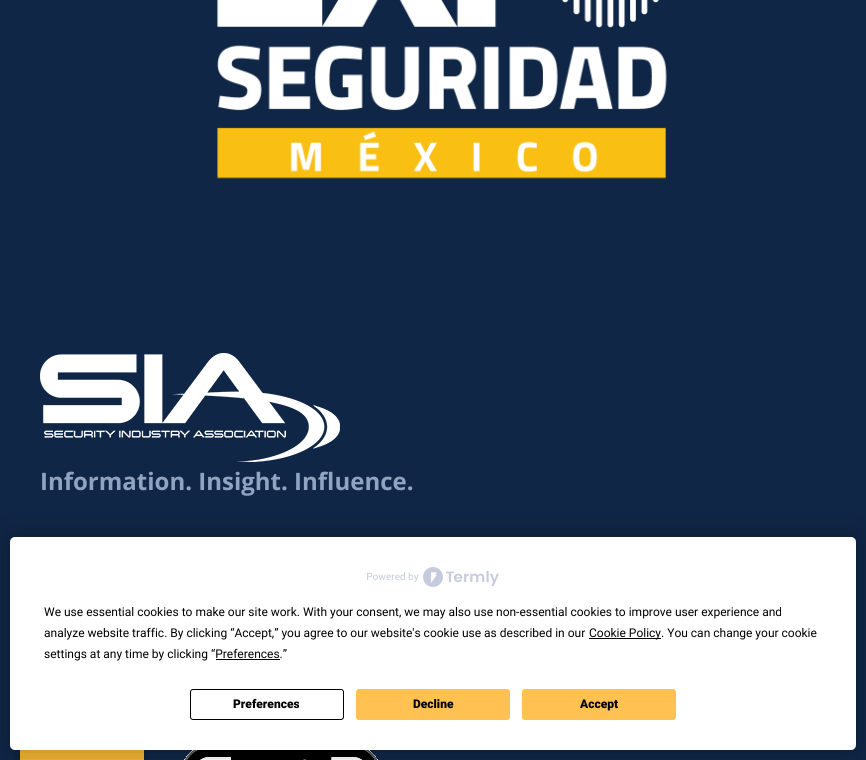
#include <cairo.h>
#include <math.h>
#include <stddef.h>


static void round_rect(cairo_t *cr, double x, double y, double w, double h, double r) {
    cairo_new_sub_path(cr);
    cairo_arc(cr, x + w - r, y + h - r, r, 0, M_PI / 2);
    cairo_arc(cr, x + r, y + h - r, r, M_PI / 2, M_PI);
    cairo_arc(cr, x + r, y + r, r, M_PI, 1.5 * M_PI);
    cairo_arc(cr, x + w - r, y + r, r, 1.5 * M_PI, 2 * M_PI);
    cairo_close_path(cr);
}

static void shadow(cairo_t *cr, double x, double y, double w, double h, double r, double blur, double alpha) {
    cairo_push_group_with_content(cr, CAIRO_CONTENT_ALPHA);
    cairo_set_operator(cr, CAIRO_OPERATOR_SOURCE);
    for (int i = 15; i >= -15 && fmin(w, h) + blur * i / 3 > 0; i -= 2) {
        double e = blur * i / 6;
        cairo_set_source_rgba(cr, 0, 0, 0, alpha * erfc((i - 1) / 8.5) / 2);
        round_rect(cr, x - e, y - e, w + 2 * e, h + 2 * e, fmax(0, fmin(r + e + blur * .6, fmin(w, h) / 2 + e)));
        cairo_fill(cr);
    }
    cairo_pattern_t *soft = cairo_pop_group(cr);
    cairo_mask(cr, soft);
    cairo_pattern_destroy(soft);
}

static void picture(cairo_t *cr, const char *path, double x, double y, double w, double h) {
    cairo_surface_t *image = cairo_image_surface_create_from_png(path);
    cairo_save(cr);
    cairo_set_source_surface(cr, image, x, y);
    cairo_rectangle(cr, x, y, w, h);
    cairo_fill(cr);
    cairo_restore(cr);
    cairo_surface_destroy(image);
}

int main(void) {
    cairo_surface_t *surface = cairo_image_surface_create(CAIRO_FORMAT_RGB24, 866, 760);
    cairo_t *cr = cairo_create(surface);
    cairo_font_options_t *options = cairo_font_options_create();
    cairo_font_options_set_hint_metrics(options, CAIRO_HINT_METRICS_OFF);
    cairo_font_options_set_hint_style(options, CAIRO_HINT_STYLE_NONE);
    cairo_set_font_options(cr, options);
    cairo_set_miter_limit(cr, 4);
    cairo_set_source_rgb(cr, 0.059, 0.149, 0.275);
    cairo_paint(cr);
    picture(cr, "img1.png", 217, 0, 450, 179);
    picture(cr, "img2.png", 40, 353, 300, 109);
    cairo_select_font_face(cr, "Open Sans", CAIRO_FONT_SLANT_NORMAL, CAIRO_FONT_WEIGHT_BOLD);
    cairo_set_font_size(cr, 24);
    cairo_set_source_rgb(cr, 0.565, 0.643, 0.757);
    cairo_move_to(cr, 40, 490);
    cairo_show_text(cr, "Information. Insight. Influence.");
    picture(cr, "img3.png", 184, 750, 194, 10);
    cairo_set_source_rgb(cr, 0, 0, 0);
    shadow(cr, 20, 725, 124, 35, 0, 4.5, 0.3);
    cairo_set_source_rgb(cr, 0.945, 0.706, 0.204);
    cairo_rectangle(cr, 20, 750, 124, 10);
    cairo_fill(cr);
    cairo_set_source_rgb(cr, 0, 0, 0);
    shadow(cr, 10, 537, 846, 213, 5, 17.5, 0.25);
    cairo_set_source_rgb(cr, 1, 1, 1);
    round_rect(cr, 10, 537, 846, 213, 5);
    cairo_fill(cr);
    picture(cr, "img4.png", 367, 567, 132, 20);
    cairo_select_font_face(cr, "Roboto", CAIRO_FONT_SLANT_NORMAL, CAIRO_FONT_WEIGHT_NORMAL);
    cairo_set_font_size(cr, 12);
    cairo_set_source_rgb(cr, 0, 0, 0);
    cairo_move_to(cr, 44, 616);
    cairo_show_text(cr, "We use essential cookies to make our site work. With your consent, we may also use non-essential cookies to improve user experience and");
    cairo_move_to(cr, 44, 637);
    cairo_show_text(cr, "analyze website traffic. By clicking “Accept,” you agree to our website's cookie use as described in our");
    cairo_rectangle(cr, 589, 638, 72, 1);
    cairo_fill(cr);
    cairo_move_to(cr, 589, 637);
    cairo_show_text(cr, "Cookie Policy. You can change your cookie");
    cairo_move_to(cr, 44, 658);
    cairo_show_text(cr, "settings at any time by clicking “Preferences.”");
    cairo_rectangle(cr, 216, 659, 64, 1);
    cairo_fill(cr);
    round_rect(cr, 190.5, 689.5, 153, 30, 2.5);
    cairo_set_line_width(cr, 1);
    cairo_stroke(cr);
    cairo_select_font_face(cr, "Roboto Black", CAIRO_FONT_SLANT_NORMAL, CAIRO_FONT_WEIGHT_NORMAL);
    cairo_move_to(cr, 233, 708);
    cairo_show_text(cr, "Preferences");
    cairo_set_source_rgb(cr, 1, 0.761, 0.322);
    round_rect(cr, 356.5, 689.5, 153, 30, 2.5);
    cairo_fill_preserve(cr);
    cairo_stroke(cr);
    cairo_set_source_rgb(cr, 0, 0, 0);
    cairo_move_to(cr, 413, 708);
    cairo_show_text(cr, "Decline");
    cairo_set_source_rgb(cr, 1, 0.761, 0.322);
    round_rect(cr, 522.5, 689.5, 153, 30, 2.5);
    cairo_fill_preserve(cr);
    cairo_stroke(cr);
    cairo_set_source_rgb(cr, 0, 0, 0);
    cairo_move_to(cr, 580, 708);
    cairo_show_text(cr, "Accept");
    cairo_surface_write_to_png(surface, "page.png");
    cairo_font_options_destroy(options);
    cairo_destroy(cr);
    cairo_surface_destroy(surface);
    return 0;
}
